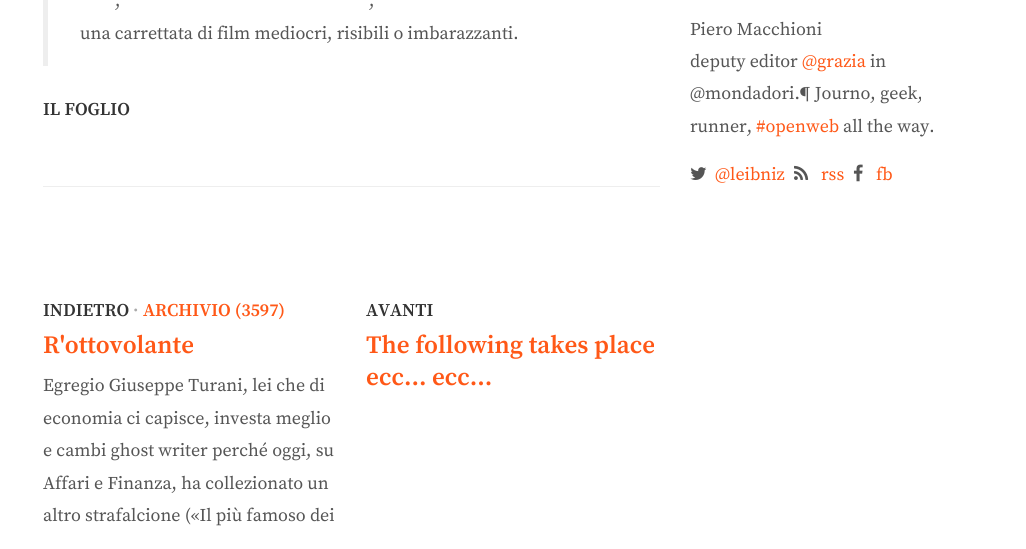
#include <cairo.h>
#include <math.h>
#include <stddef.h>


static void picture(cairo_t *cr, const char *path, double x, double y, double w, double h) {
    cairo_surface_t *image = cairo_image_surface_create_from_png(path);
    cairo_save(cr);
    cairo_set_source_surface(cr, image, x, y);
    cairo_rectangle(cr, x, y, w, h);
    cairo_fill(cr);
    cairo_restore(cr);
    cairo_surface_destroy(image);
}

int main(void) {
    cairo_surface_t *surface = cairo_image_surface_create(CAIRO_FORMAT_RGB24, 1026, 549);
    cairo_t *cr = cairo_create(surface);
    cairo_font_options_t *options = cairo_font_options_create();
    cairo_font_options_set_hint_metrics(options, CAIRO_HINT_METRICS_OFF);
    cairo_font_options_set_hint_style(options, CAIRO_HINT_STYLE_NONE);
    cairo_set_font_options(cr, options);
    cairo_set_miter_limit(cr, 4);
    cairo_set_source_rgb(cr, 1, 1, 1);
    cairo_paint(cr);
    cairo_set_source_rgb(cr, 0.933, 0.933, 0.933);
    cairo_rectangle(cr, 43, 0, 5, 66);
    cairo_fill(cr);
    cairo_select_font_face(cr, "Source Serif Pro", CAIRO_FONT_SLANT_NORMAL, CAIRO_FONT_WEIGHT_NORMAL);
    cairo_set_font_size(cr, 18);
    cairo_set_source_rgb(cr, 0.333, 0.333, 0.333);
    cairo_move_to(cr, 115, 6);
    cairo_show_text(cr, ",");
    cairo_move_to(cr, 369, 6);
    cairo_show_text(cr, ",");
    cairo_move_to(cr, 80, 39);
    cairo_show_text(cr, "una carrettata di film mediocri, risibili o imbarazzanti.");
    cairo_select_font_face(cr, "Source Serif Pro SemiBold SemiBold", CAIRO_FONT_SLANT_NORMAL, CAIRO_FONT_WEIGHT_NORMAL);
    cairo_set_source_rgb(cr, 0.2, 0.2, 0.2);
    cairo_move_to(cr, 43, 115);
    cairo_show_text(cr, "IL FOGLIO");
    cairo_set_source_rgb(cr, 0.933, 0.933, 0.933);
    cairo_rectangle(cr, 43, 186, 617, 1);
    cairo_fill(cr);
    cairo_set_source_rgb(cr, 0.2, 0.2, 0.2);
    cairo_move_to(cr, 43, 316);
    cairo_show_text(cr, "INDIETRO");
    cairo_set_source_rgb(cr, 0.667, 0.667, 0.667);
    cairo_move_to(cr, 133, 316);
    cairo_show_text(cr, "·");
    cairo_set_source_rgb(cr, 1, 0.345, 0.09);
    cairo_move_to(cr, 143, 316);
    cairo_show_text(cr, "ARCHIVIO (3597)");
    cairo_set_font_size(cr, 25);
    cairo_move_to(cr, 43, 353);
    cairo_show_text(cr, "R'ottovolante");
    cairo_select_font_face(cr, "Source Serif Pro", CAIRO_FONT_SLANT_NORMAL, CAIRO_FONT_WEIGHT_NORMAL);
    cairo_set_font_size(cr, 18);
    cairo_set_source_rgb(cr, 0.333, 0.333, 0.333);
    cairo_move_to(cr, 43, 391);
    cairo_show_text(cr, "Egregio Giuseppe Turani, lei che di");
    cairo_move_to(cr, 43, 424);
    cairo_show_text(cr, "economia ci capisce, investa meglio");
    cairo_move_to(cr, 43, 456);
    cairo_show_text(cr, "e cambi ghost writer perché oggi, su");
    cairo_move_to(cr, 43, 489);
    cairo_show_text(cr, "Affari e Finanza, ha collezionato un");
    cairo_move_to(cr, 43, 521);
    cairo_show_text(cr, "altro strafalcione («Il più famoso dei");
    cairo_select_font_face(cr, "Source Serif Pro SemiBold SemiBold", CAIRO_FONT_SLANT_NORMAL, CAIRO_FONT_WEIGHT_NORMAL);
    cairo_set_source_rgb(cr, 0.2, 0.2, 0.2);
    cairo_move_to(cr, 366, 316);
    cairo_show_text(cr, "AVANTI");
    cairo_set_font_size(cr, 25);
    cairo_set_source_rgb(cr, 1, 0.345, 0.09);
    cairo_move_to(cr, 366, 353);
    cairo_show_text(cr, "The following takes place");
    cairo_move_to(cr, 366, 385);
    cairo_show_text(cr, "ecc... ecc...");
    cairo_select_font_face(cr, "Source Serif Pro", CAIRO_FONT_SLANT_NORMAL, CAIRO_FONT_WEIGHT_NORMAL);
    cairo_set_font_size(cr, 18);
    cairo_set_source_rgb(cr, 0.333, 0.333, 0.333);
    cairo_move_to(cr, 690, 35);
    cairo_show_text(cr, "Piero Macchioni");
    cairo_move_to(cr, 690, 67);
    cairo_show_text(cr, "deputy editor");
    cairo_set_source_rgb(cr, 1, 0.345, 0.09);
    cairo_move_to(cr, 802, 67);
    cairo_show_text(cr, "@grazia");
    cairo_set_source_rgb(cr, 0.333, 0.333, 0.333);
    cairo_move_to(cr, 870, 67);
    cairo_show_text(cr, "in");
    cairo_move_to(cr, 690, 99);
    cairo_show_text(cr, "@mondadori.¶ Journo, geek,");
    cairo_move_to(cr, 690, 132);
    cairo_show_text(cr, "runner,");
    cairo_set_source_rgb(cr, 1, 0.345, 0.09);
    cairo_move_to(cr, 756, 132);
    cairo_show_text(cr, "#openweb");
    cairo_set_source_rgb(cr, 0.333, 0.333, 0.333);
    cairo_move_to(cr, 843, 132);
    cairo_show_text(cr, "all the way.");
    picture(cr, "img1.png", 690, 167, 17, 13);
    cairo_set_source_rgb(cr, 1, 0.345, 0.09);
    cairo_move_to(cr, 715, 180);
    cairo_show_text(cr, "@leibniz");
    picture(cr, "img2.png", 794, 165, 15, 15);
    cairo_move_to(cr, 821, 180);
    cairo_show_text(cr, "rss");
    picture(cr, "img3.png", 853, 164, 10, 18);
    cairo_move_to(cr, 876, 180);
    cairo_show_text(cr, "fb");
    cairo_surface_write_to_png(surface, "page.png");
    cairo_font_options_destroy(options);
    cairo_destroy(cr);
    cairo_surface_destroy(surface);
    return 0;
}
